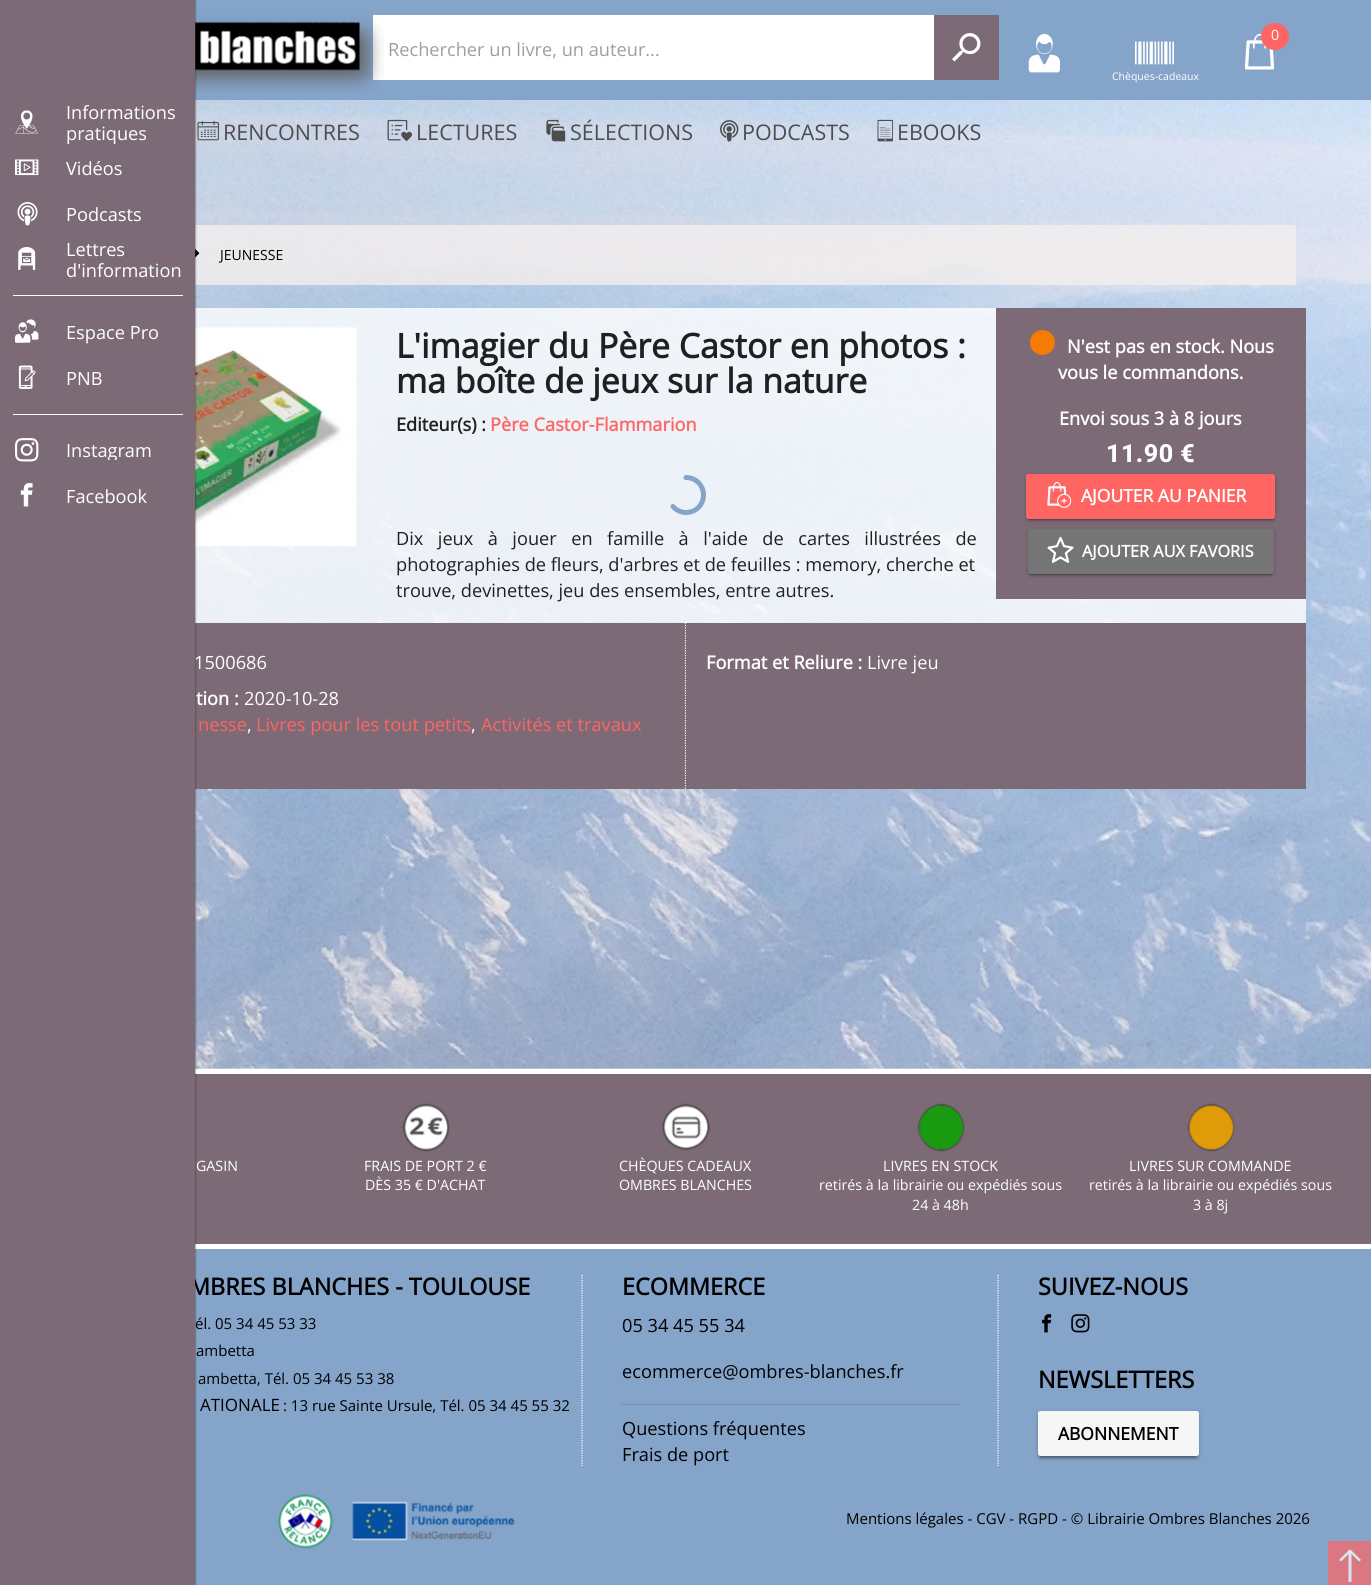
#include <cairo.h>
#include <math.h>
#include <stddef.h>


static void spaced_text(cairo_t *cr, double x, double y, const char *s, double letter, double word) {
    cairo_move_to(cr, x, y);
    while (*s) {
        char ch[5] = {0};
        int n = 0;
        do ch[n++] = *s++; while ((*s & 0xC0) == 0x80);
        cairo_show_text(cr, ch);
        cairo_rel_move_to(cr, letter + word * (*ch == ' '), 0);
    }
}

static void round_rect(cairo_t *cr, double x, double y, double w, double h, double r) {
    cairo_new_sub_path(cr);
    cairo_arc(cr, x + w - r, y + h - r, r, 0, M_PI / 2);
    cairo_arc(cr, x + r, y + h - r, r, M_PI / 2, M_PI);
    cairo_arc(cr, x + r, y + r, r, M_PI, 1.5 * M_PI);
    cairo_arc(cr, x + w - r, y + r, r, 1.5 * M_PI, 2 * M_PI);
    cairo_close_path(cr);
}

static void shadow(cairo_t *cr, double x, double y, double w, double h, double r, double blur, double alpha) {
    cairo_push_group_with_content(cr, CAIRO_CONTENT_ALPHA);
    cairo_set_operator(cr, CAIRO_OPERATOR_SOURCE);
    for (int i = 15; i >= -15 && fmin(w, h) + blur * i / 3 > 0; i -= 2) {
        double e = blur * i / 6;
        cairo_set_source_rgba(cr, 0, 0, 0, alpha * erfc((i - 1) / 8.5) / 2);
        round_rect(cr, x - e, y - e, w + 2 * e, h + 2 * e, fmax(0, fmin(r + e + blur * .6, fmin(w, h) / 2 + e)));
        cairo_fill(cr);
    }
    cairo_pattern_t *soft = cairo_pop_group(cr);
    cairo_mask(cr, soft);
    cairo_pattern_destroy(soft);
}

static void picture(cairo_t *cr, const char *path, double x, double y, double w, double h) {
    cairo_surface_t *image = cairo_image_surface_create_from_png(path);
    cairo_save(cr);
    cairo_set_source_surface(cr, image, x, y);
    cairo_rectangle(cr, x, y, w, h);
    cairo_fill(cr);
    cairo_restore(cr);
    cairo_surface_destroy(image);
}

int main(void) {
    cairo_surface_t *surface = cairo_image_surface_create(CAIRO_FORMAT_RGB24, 1371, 1585);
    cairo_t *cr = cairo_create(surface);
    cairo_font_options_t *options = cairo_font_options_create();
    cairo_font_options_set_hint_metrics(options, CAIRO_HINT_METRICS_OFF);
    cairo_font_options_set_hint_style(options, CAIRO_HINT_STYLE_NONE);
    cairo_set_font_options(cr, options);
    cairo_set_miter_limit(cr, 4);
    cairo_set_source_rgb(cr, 1, 1, 1);
    cairo_paint(cr);
    picture(cr, "img1.png", 195, 100, 1176, 969);
    cairo_set_source_rgb(cr, 0.518, 0.643, 0.792);
    cairo_rectangle(cr, 195, 0, 1176, 100);
    cairo_fill(cr);
    cairo_set_source_rgb(cr, 1, 1, 1);
    cairo_rectangle(cr, 373, 15, 561, 65);
    cairo_fill(cr);
    picture(cr, "img2.png", 195, 15, 189, 79);
    cairo_select_font_face(cr, "Open Sans", CAIRO_FONT_SLANT_NORMAL, CAIRO_FONT_WEIGHT_NORMAL);
    cairo_set_font_size(cr, 18.2);
    cairo_set_source_rgb(cr, 0.62, 0.62, 0.62);
    cairo_move_to(cr, 388, 56);
    cairo_show_text(cr, "Rechercher un livre, un auteur...");
    cairo_set_source_rgb(cr, 0.486, 0.416, 0.467);
    cairo_rectangle(cr, 934, 15, 65, 65);
    cairo_fill(cr);
    picture(cr, "img3.png", 952, 33, 29, 29);
    picture(cr, "img4.png", 1028, 33, 32, 40);
    picture(cr, "img5.png", 1244, 33, 31, 37);
    cairo_set_source_rgb(cr, 1, 0.396, 0.384);
    round_rect(cr, 1261, 23, 28, 27, 13.5);
    cairo_fill(cr);
    cairo_set_font_size(cr, 14.25);
    cairo_set_source_rgb(cr, 1, 1, 1);
    cairo_move_to(cr, 1271, 40);
    cairo_show_text(cr, "0");
    picture(cr, "img6.png", 1135, 41, 39, 24);
    cairo_set_font_size(cr, 10.5);
    cairo_move_to(cr, 1112, 80);
    cairo_show_text(cr, "Chèques-cadeaux");
    picture(cr, "img7.png", 197, 121, 22, 20);
    cairo_set_font_size(cr, 21.5);
    cairo_set_source_rgb(cr, 0.302, 0.302, 0.302);
    cairo_move_to(cr, 223, 140);
    cairo_show_text(cr, "RENCONTRES");
    picture(cr, "img8.png", 387, 119, 26, 23);
    cairo_move_to(cr, 416, 140);
    cairo_show_text(cr, "LECTURES");
    picture(cr, "img9.png", 546, 119, 20, 23);
    cairo_move_to(cr, 570, 140);
    cairo_show_text(cr, "SÉLECTIONS");
    picture(cr, "img10.png", 720, 120, 19, 22);
    cairo_move_to(cr, 742, 140);
    cairo_show_text(cr, "PODCASTS");
    picture(cr, "img11.png", 877, 119, 16, 23);
    cairo_move_to(cr, 897, 140);
    cairo_show_text(cr, "EBOOKS");
    cairo_set_source_rgba(cr, 0.953, 0.937, 0.929, 0.8);
    cairo_rectangle(cr, 195, 225, 1101, 60);
    cairo_fill(cr);
    picture(cr, "img20.png", 195, 248, 5, 10);
    cairo_set_source_rgba(cr, 1, 1, 1, 0.8);
    cairo_rectangle(cr, 195, 308, 1111, 315);
    cairo_fill(cr);
    picture(cr, "img21.png", 195, 327, 162, 220);
    cairo_set_source_rgb(cr, 0.486, 0.416, 0.467);
    cairo_rectangle(cr, 195, 623, 491, 166);
    cairo_fill(cr);
    cairo_set_source_rgb(cr, 0.518, 0.643, 0.792);
    cairo_rectangle(cr, 195, 1249, 1176, 336);
    cairo_fill(cr);
    cairo_set_source_rgb(cr, 0.486, 0.416, 0.467);
    cairo_rectangle(cr, 195, 1074, 1176, 170);
    cairo_fill(cr);
    cairo_set_source_rgb(cr, 0.2, 0.2, 0.2);
    shadow(cr, 0, 0, 195, 1585, 0, 1, 1);
    cairo_select_font_face(cr, "Open Sans", CAIRO_FONT_SLANT_NORMAL, CAIRO_FONT_WEIGHT_BOLD);
    cairo_set_font_size(cr, 23.4);
    cairo_set_source_rgb(cr, 0, 0, 0);
    cairo_move_to(cr, 189, 1295);
    cairo_show_text(cr, "MBRES BLANCHES - TOULOUSE");
    cairo_set_source_rgb(cr, 0.486, 0.416, 0.467);
    cairo_rectangle(cr, 0, 0, 195, 1585);
    cairo_fill(cr);
    picture(cr, "img12.png", 15, 110, 23, 24);
    cairo_select_font_face(cr, "Open Sans", CAIRO_FONT_SLANT_NORMAL, CAIRO_FONT_WEIGHT_NORMAL);
    cairo_set_font_size(cr, 18.2);
    cairo_set_source_rgb(cr, 1, 1, 1);
    cairo_move_to(cr, 66, 119);
    cairo_show_text(cr, "Informations");
    cairo_save(cr);
    cairo_rectangle(cr, 53, 103, 130, 41);
    cairo_clip(cr);
    cairo_move_to(cr, 66, 140);
    cairo_show_text(cr, "pratiques");
    cairo_restore(cr);
    picture(cr, "img13.png", 15, 159, 24, 17);
    cairo_move_to(cr, 66, 175);
    cairo_show_text(cr, "Vidéos");
    picture(cr, "img14.png", 17, 202, 21, 24);
    cairo_move_to(cr, 66, 221);
    cairo_show_text(cr, "Podcasts");
    picture(cr, "img15.png", 18, 247, 18, 23);
    cairo_move_to(cr, 66, 256);
    cairo_show_text(cr, "Lettres");
    cairo_move_to(cr, 66, 277);
    cairo_show_text(cr, "d'information");
    cairo_rectangle(cr, 13, 295, 170, 1);
    cairo_fill(cr);
    picture(cr, "img16.png", 15, 319, 24, 24);
    cairo_move_to(cr, 66, 339);
    cairo_show_text(cr, "Espace Pro");
    picture(cr, "img17.png", 18, 365, 18, 24);
    cairo_move_to(cr, 66, 385);
    cairo_show_text(cr, "PNB");
    cairo_rectangle(cr, 13, 414, 170, 1);
    cairo_fill(cr);
    picture(cr, "img18.png", 15, 438, 24, 24);
    cairo_save(cr);
    cairo_rectangle(cr, 53, 440, 130, 20);
    cairo_clip(cr);
    cairo_move_to(cr, 66, 457);
    cairo_show_text(cr, "Instagram");
    cairo_restore(cr);
    picture(cr, "img19.png", 20, 483, 13, 24);
    cairo_move_to(cr, 66, 503);
    cairo_show_text(cr, "Facebook");
    cairo_set_font_size(cr, 14);
    cairo_set_source_rgb(cr, 0, 0, 0);
    cairo_move_to(cr, 220, 260);
    cairo_show_text(cr, "JEUNESSE");
    cairo_select_font_face(cr, "Open Sans", CAIRO_FONT_SLANT_NORMAL, CAIRO_FONT_WEIGHT_BOLD);
    cairo_set_font_size(cr, 33.75);
    cairo_set_source_rgb(cr, 0.122, 0.125, 0.125);
    cairo_move_to(cr, 396, 358);
    cairo_show_text(cr, "L'imagier du Père Castor en photos :");
    cairo_move_to(cr, 396, 393);
    cairo_show_text(cr, "ma boîte de jeux sur la nature");
    cairo_set_font_size(cr, 18.2);
    cairo_move_to(cr, 396, 431);
    cairo_show_text(cr, "Editeur(s) :");
    cairo_set_source_rgb(cr, 1, 0.396, 0.384);
    cairo_move_to(cr, 490, 431);
    cairo_show_text(cr, "Père Castor-Flammarion");
    cairo_new_path(cr);
    cairo_move_to(cr, 686, 477.5);
    cairo_curve_to(cr, 696, 477.5, 703.5, 485.5, 703.5, 495);
    cairo_curve_to(cr, 703.5, 504.5, 696, 512.5, 686, 512.5);
    cairo_curve_to(cr, 681, 512.5, 676, 510, 673, 506.5);
    cairo_set_source_rgb(cr, 0.518, 0.643, 0.792);
    cairo_set_line_width(cr, 5);
    cairo_set_line_cap(cr, CAIRO_LINE_CAP_ROUND);
    cairo_stroke(cr);
    cairo_select_font_face(cr, "Open Sans", CAIRO_FONT_SLANT_NORMAL, CAIRO_FONT_WEIGHT_NORMAL);
    cairo_set_source_rgb(cr, 0.122, 0.125, 0.125);
    spaced_text(cr, 396, 545, "Dix jeux à jouer en famille à l'aide de cartes illustrées de", 0, 9.75);
    cairo_move_to(cr, 396, 571);
    cairo_show_text(cr, "photographies de fleurs, d'arbres et de feuilles : memory, cherche et");
    cairo_move_to(cr, 396, 597);
    cairo_show_text(cr, "trouve, devinettes, jeu des ensembles, entre autres.");
    cairo_set_source_rgb(cr, 0.486, 0.416, 0.467);
    cairo_rectangle(cr, 996, 308, 310, 291);
    cairo_fill(cr);
    picture(cr, "img22.png", 1030, 330, 25, 25);
    cairo_select_font_face(cr, "Open Sans", CAIRO_FONT_SLANT_NORMAL, CAIRO_FONT_WEIGHT_BOLD);
    cairo_set_source_rgb(cr, 1, 1, 1);
    cairo_move_to(cr, 1067, 353);
    cairo_show_text(cr, "N'est pas en stock. Nous");
    cairo_move_to(cr, 1058, 379);
    cairo_show_text(cr, "vous le commandons.");
    cairo_move_to(cr, 1059, 425);
    cairo_show_text(cr, "Envoi sous 3 à 8 jours");
    cairo_select_font_face(cr, "Roboto ExtraBold", CAIRO_FONT_SLANT_NORMAL, CAIRO_FONT_WEIGHT_NORMAL);
    cairo_set_font_size(cr, 25);
    spaced_text(cr, 1106, 462, "11.90 €", 0.5, 0);
    cairo_set_source_rgb(cr, 0, 0, 0);
    shadow(cr, 1026, 475, 249, 45, 2.5, 3, 0.12);
    shadow(cr, 1026, 476, 249, 45, 2.5, 1, 0.14);
    shadow(cr, 1029, 480, 244, 40, 0, 0.5, 0.2);
    cairo_set_source_rgb(cr, 1, 0.396, 0.384);
    round_rect(cr, 1026, 474, 249, 45, 2.5);
    cairo_fill(cr);
    picture(cr, "img23.png", 1047, 481, 25, 27);
    cairo_select_font_face(cr, "Open Sans", CAIRO_FONT_SLANT_NORMAL, CAIRO_FONT_WEIGHT_BOLD);
    cairo_set_font_size(cr, 17.5);
    cairo_set_source_rgb(cr, 1, 1, 1);
    cairo_move_to(cr, 1081, 502);
    cairo_show_text(cr, "AJOUTER AU PANIER");
    cairo_set_source_rgb(cr, 0, 0, 0);
    shadow(cr, 1028, 530, 246, 45, 2.5, 3, 0.12);
    shadow(cr, 1028, 531, 246, 45, 2.5, 1, 0.14);
    shadow(cr, 1030, 535, 241, 40, 0, 0.5, 0.2);
    cairo_set_source_rgb(cr, 0.459, 0.459, 0.459);
    round_rect(cr, 1028, 529, 246, 45, 2.5);
    cairo_fill(cr);
    picture(cr, "img24.png", 1047, 536, 27, 27);
    cairo_set_font_size(cr, 16.25);
    cairo_set_source_rgb(cr, 1, 1, 1);
    cairo_move_to(cr, 1082, 557);
    cairo_show_text(cr, "AJOUTER AUX FAVORIS");
    cairo_new_path(cr);
    cairo_move_to(cr, 685.5, 622.5);
    cairo_line_to(cr, 685.5, 789);
    cairo_set_line_width(cr, 1.2);
    cairo_set_line_cap(cr, CAIRO_LINE_CAP_BUTT);
    cairo_set_dash(cr, (double[]){1.25, 1.25}, 2, 0);
    cairo_stroke(cr);
    cairo_select_font_face(cr, "Open Sans", CAIRO_FONT_SLANT_NORMAL, CAIRO_FONT_WEIGHT_NORMAL);
    cairo_set_font_size(cr, 18.2);
    cairo_move_to(cr, 194, 669);
    cairo_show_text(cr, "1500686");
    cairo_select_font_face(cr, "Open Sans", CAIRO_FONT_SLANT_NORMAL, CAIRO_FONT_WEIGHT_BOLD);
    cairo_move_to(cr, 196, 705);
    cairo_show_text(cr, "tion :");
    cairo_select_font_face(cr, "Open Sans", CAIRO_FONT_SLANT_NORMAL, CAIRO_FONT_WEIGHT_NORMAL);
    cairo_move_to(cr, 244, 705);
    cairo_show_text(cr, "2020-10-28");
    cairo_set_source_rgb(cr, 1, 0.396, 0.384);
    cairo_move_to(cr, 198, 731);
    cairo_show_text(cr, "nesse");
    cairo_set_source_rgb(cr, 1, 1, 1);
    cairo_move_to(cr, 247, 731);
    cairo_show_text(cr, ",");
    cairo_set_source_rgb(cr, 1, 0.396, 0.384);
    cairo_move_to(cr, 256, 731);
    cairo_show_text(cr, "Livres pour les tout petits");
    cairo_set_source_rgb(cr, 1, 1, 1);
    cairo_move_to(cr, 471, 731);
    cairo_show_text(cr, ",");
    cairo_set_source_rgb(cr, 1, 0.396, 0.384);
    cairo_move_to(cr, 481, 731);
    cairo_show_text(cr, "Activités et travaux");
    cairo_set_source_rgb(cr, 0.486, 0.416, 0.467);
    cairo_rectangle(cr, 686, 623, 620, 166);
    cairo_fill(cr);
    cairo_select_font_face(cr, "Open Sans", CAIRO_FONT_SLANT_NORMAL, CAIRO_FONT_WEIGHT_BOLD);
    cairo_set_source_rgb(cr, 1, 1, 1);
    cairo_move_to(cr, 706, 669);
    cairo_show_text(cr, "Format et Reliure :");
    cairo_select_font_face(cr, "Open Sans", CAIRO_FONT_SLANT_NORMAL, CAIRO_FONT_WEIGHT_NORMAL);
    cairo_move_to(cr, 867, 669);
    cairo_show_text(cr, "Livre jeu");
    cairo_set_source_rgb(cr, 0.855, 0.471, 0.506);
    cairo_rectangle(cr, 1328, 1541, 43, 44);
    cairo_fill(cr);
    cairo_set_source_rgb(cr, 0.855, 0.894, 0.937);
    cairo_new_path(cr);
    cairo_move_to(cr, 1361, 1560);
    cairo_line_to(cr, 1352.5, 1551.5);
    cairo_curve_to(cr, 1350, 1549, 1350, 1549, 1347.5, 1551.5);
    cairo_line_to(cr, 1339, 1560);
    cairo_line_to(cr, 1341, 1561.5);
    cairo_line_to(cr, 1348.5, 1554);
    cairo_line_to(cr, 1348.5, 1582);
    cairo_line_to(cr, 1351.5, 1582);
    cairo_line_to(cr, 1351.5, 1554);
    cairo_line_to(cr, 1359, 1561.5);
    cairo_close_path(cr);
    cairo_fill(cr);
    cairo_set_font_size(cr, 14.25);
    cairo_set_source_rgb(cr, 1, 1, 1);
    cairo_move_to(cr, 196, 1171);
    cairo_show_text(cr, "GASIN");
    picture(cr, "img25.png", 402, 1103, 48, 49);
    cairo_move_to(cr, 364, 1171);
    cairo_show_text(cr, "FRAIS DE PORT 2 €");
    cairo_move_to(cr, 365, 1190);
    cairo_show_text(cr, "DÈS 35 € D'ACHAT");
    picture(cr, "img26.png", 662, 1103, 49, 48);
    cairo_move_to(cr, 619, 1171);
    cairo_show_text(cr, "CHÈQUES CADEAUX");
    cairo_move_to(cr, 619, 1190);
    cairo_show_text(cr, "OMBRES BLANCHES");
    picture(cr, "img27.png", 917, 1103, 48, 49);
    cairo_move_to(cr, 883, 1171);
    cairo_show_text(cr, "LIVRES EN STOCK");
    cairo_move_to(cr, 819, 1190);
    cairo_show_text(cr, "retirés à la librairie ou expédiés sous");
    cairo_move_to(cr, 912, 1210);
    cairo_show_text(cr, "24 à 48h");
    picture(cr, "img28.png", 1187, 1103, 48, 49);
    cairo_move_to(cr, 1129, 1171);
    cairo_show_text(cr, "LIVRES SUR COMMANDE");
    cairo_move_to(cr, 1089, 1190);
    cairo_show_text(cr, "retirés à la librairie ou expédiés sous");
    cairo_move_to(cr, 1193, 1210);
    cairo_show_text(cr, "3 à 8j");
    cairo_set_font_size(cr, 15);
    cairo_set_source_rgb(cr, 0, 0, 0);
    cairo_move_to(cr, 195, 1329);
    cairo_show_text(cr, "él. 05 34 45 53 33");
    cairo_move_to(cr, 196, 1356);
    cairo_show_text(cr, "ambetta");
    cairo_move_to(cr, 198, 1384);
    cairo_show_text(cr, "ambetta, Tél. 05 34 45 53 38");
    cairo_set_font_size(cr, 17);
    cairo_move_to(cr, 200, 1411);
    cairo_show_text(cr, "ATIONALE");
    cairo_set_font_size(cr, 15);
    cairo_move_to(cr, 283, 1411);
    cairo_show_text(cr, ": 13 rue Sainte Ursule, Tél. 05 34 45 55 32");
    cairo_new_path(cr);
    cairo_move_to(cr, 582, 1275);
    cairo_line_to(cr, 582, 1466);
    cairo_set_source_rgb(cr, 1, 1, 1);
    cairo_stroke(cr);
    cairo_select_font_face(cr, "Open Sans", CAIRO_FONT_SLANT_NORMAL, CAIRO_FONT_WEIGHT_BOLD);
    cairo_set_font_size(cr, 23.4);
    cairo_set_source_rgb(cr, 0, 0, 0);
    cairo_move_to(cr, 622, 1295);
    cairo_show_text(cr, "ECOMMERCE");
    cairo_select_font_face(cr, "Open Sans", CAIRO_FONT_SLANT_NORMAL, CAIRO_FONT_WEIGHT_NORMAL);
    cairo_set_font_size(cr, 18.2);
    cairo_move_to(cr, 622, 1332);
    cairo_show_text(cr, "05 34 45 55 34");
    cairo_move_to(cr, 622, 1378);
    cairo_show_text(cr, "ecommerce@ombres-blanches.fr");
    cairo_set_source_rgb(cr, 0.455, 0.565, 0.698);
    cairo_rectangle(cr, 621, 1404, 339, 1);
    cairo_fill(cr);
    cairo_set_source_rgb(cr, 0, 0, 0);
    cairo_move_to(cr, 622, 1435);
    cairo_show_text(cr, "Questions fréquentes");
    cairo_move_to(cr, 622, 1461);
    cairo_show_text(cr, "Frais de port");
    cairo_new_path(cr);
    cairo_move_to(cr, 998, 1275);
    cairo_line_to(cr, 998, 1466);
    cairo_set_source_rgb(cr, 1, 1, 1);
    cairo_stroke(cr);
    cairo_select_font_face(cr, "Open Sans", CAIRO_FONT_SLANT_NORMAL, CAIRO_FONT_WEIGHT_BOLD);
    cairo_set_font_size(cr, 23.4);
    cairo_set_source_rgb(cr, 0, 0, 0);
    cairo_move_to(cr, 1038, 1295);
    cairo_show_text(cr, "SUIVEZ-NOUS");
    picture(cr, "img29.png", 1042, 1314, 10, 19);
    picture(cr, "img30.png", 1071, 1314, 19, 19);
    cairo_move_to(cr, 1038, 1388);
    cairo_show_text(cr, "NEWSLETTERS");
    cairo_set_source_rgb(cr, 0, 0, 0);
    shadow(cr, 1038, 1413, 161, 45, 2.5, 3, 0.12);
    shadow(cr, 1038, 1414, 161, 45, 2.5, 1, 0.14);
    shadow(cr, 1040, 1418, 156, 40, 0, 0.5, 0.2);
    cairo_set_source_rgb(cr, 0.961, 0.961, 0.961);
    round_rect(cr, 1038, 1411, 161, 45, 2.5);
    cairo_fill(cr);
    cairo_set_font_size(cr, 17.5);
    cairo_set_source_rgb(cr, 0, 0, 0);
    cairo_move_to(cr, 1058, 1440);
    cairo_show_text(cr, "ABONNEMENT");
    picture(cr, "img31.png", 278, 1494, 237, 55);
    cairo_select_font_face(cr, "Open Sans", CAIRO_FONT_SLANT_NORMAL, CAIRO_FONT_WEIGHT_NORMAL);
    cairo_set_font_size(cr, 15);
    cairo_move_to(cr, 846, 1524);
    cairo_show_text(cr, "Mentions légales - CGV - RGPD - © Librairie Ombres Blanches 2026");
    cairo_surface_write_to_png(surface, "page.png");
    cairo_font_options_destroy(options);
    cairo_destroy(cr);
    cairo_surface_destroy(surface);
    return 0;
}
